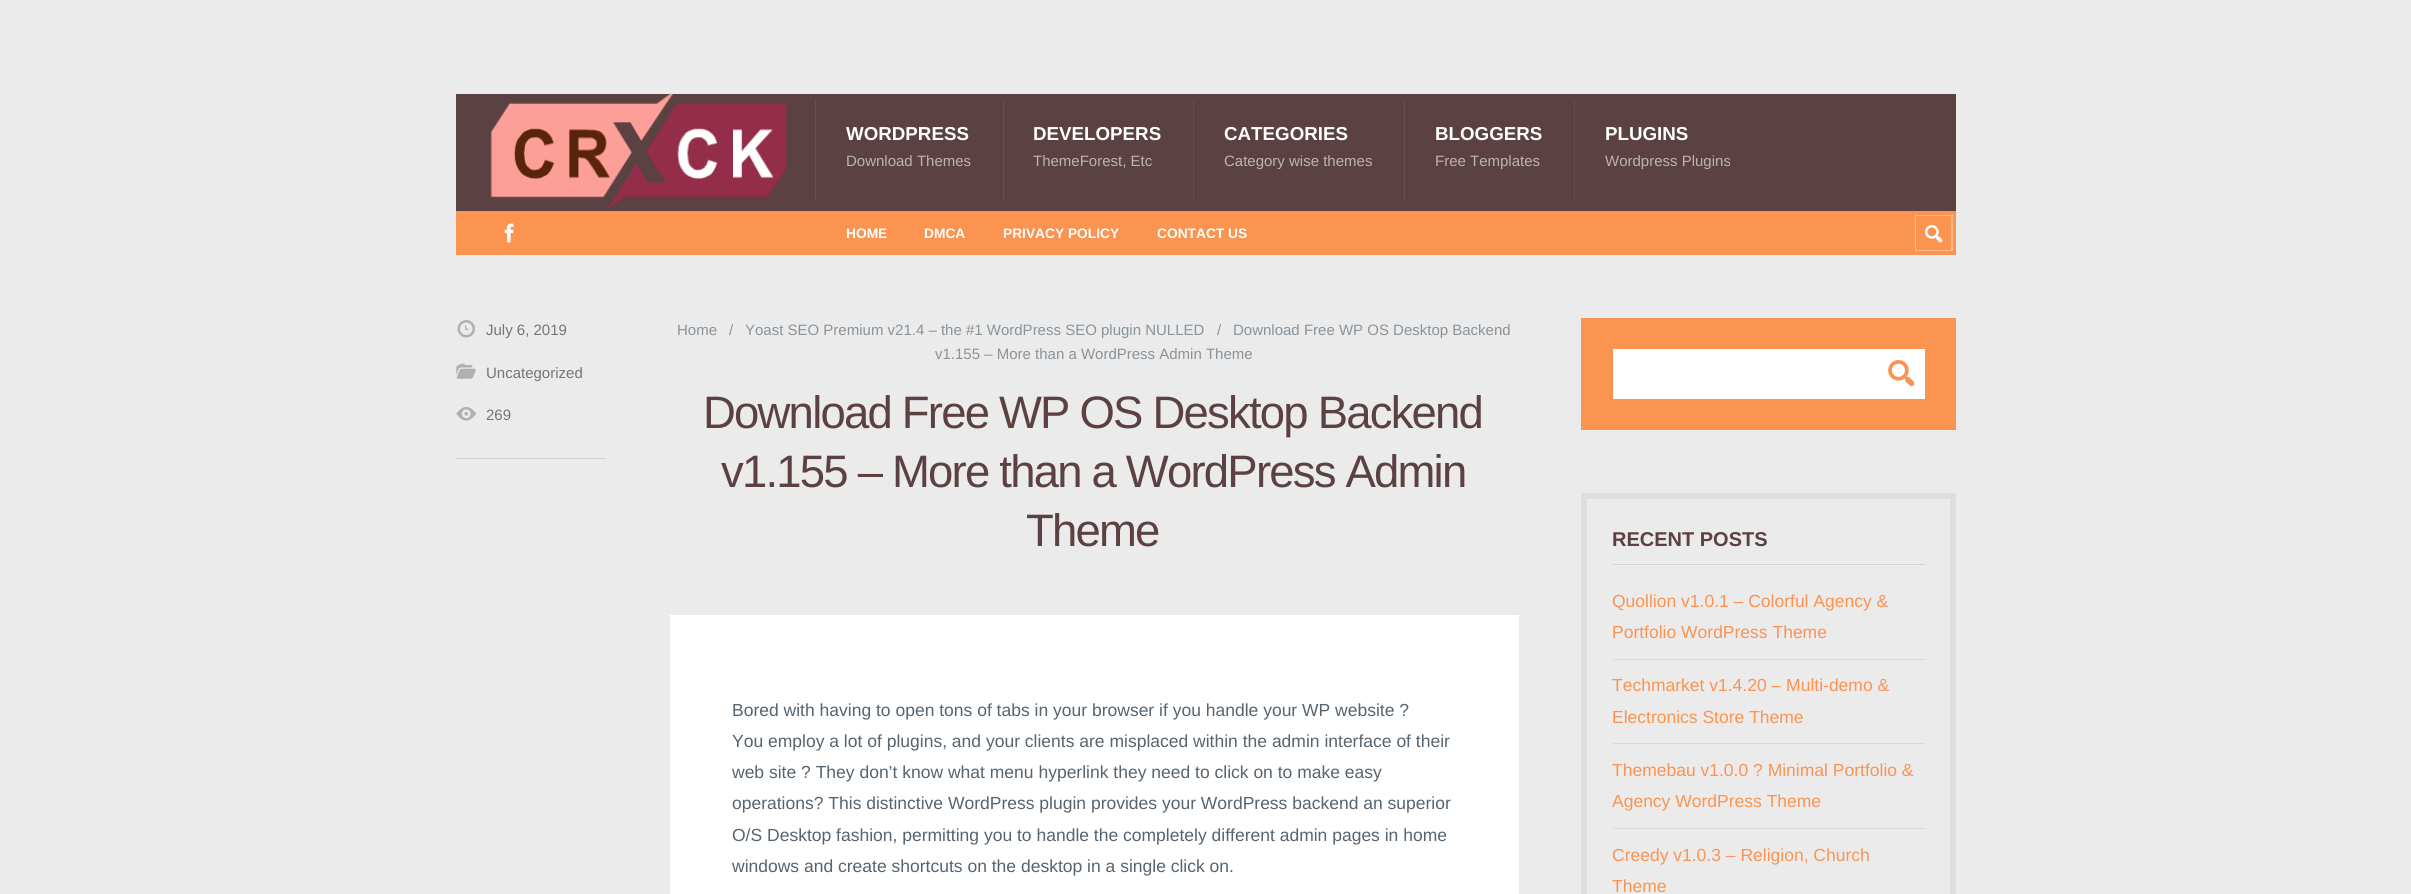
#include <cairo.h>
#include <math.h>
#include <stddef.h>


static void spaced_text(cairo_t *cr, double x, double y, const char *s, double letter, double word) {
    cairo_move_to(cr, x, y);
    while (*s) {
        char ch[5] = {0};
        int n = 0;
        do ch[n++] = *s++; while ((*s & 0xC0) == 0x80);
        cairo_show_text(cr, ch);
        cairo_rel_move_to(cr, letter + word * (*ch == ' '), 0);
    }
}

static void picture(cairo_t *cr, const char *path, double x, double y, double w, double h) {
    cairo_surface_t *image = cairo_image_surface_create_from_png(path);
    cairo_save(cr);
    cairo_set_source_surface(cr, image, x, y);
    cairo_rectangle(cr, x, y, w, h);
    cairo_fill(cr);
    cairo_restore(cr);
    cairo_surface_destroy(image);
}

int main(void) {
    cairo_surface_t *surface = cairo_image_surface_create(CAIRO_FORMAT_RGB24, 2411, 894);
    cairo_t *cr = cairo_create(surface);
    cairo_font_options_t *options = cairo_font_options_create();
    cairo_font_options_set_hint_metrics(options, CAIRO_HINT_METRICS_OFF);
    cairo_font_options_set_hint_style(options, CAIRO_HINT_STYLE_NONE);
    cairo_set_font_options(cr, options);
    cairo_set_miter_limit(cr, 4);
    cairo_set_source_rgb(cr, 0.918, 0.918, 0.918);
    cairo_paint(cr);
    cairo_set_source_rgb(cr, 0.357, 0.255, 0.255);
    cairo_rectangle(cr, 456, 94, 1500, 117);
    cairo_fill(cr);
    picture(cr, "img1.png", 490, 93, 297, 117);
    cairo_set_source_rgb(cr, 0.4, 0.306, 0.306);
    cairo_rectangle(cr, 815, 100, 1, 101);
    cairo_fill(cr);
    cairo_select_font_face(cr, "Liberation Sans", CAIRO_FONT_SLANT_NORMAL, CAIRO_FONT_WEIGHT_BOLD);
    cairo_set_font_size(cr, 18.75);
    cairo_set_source_rgb(cr, 1, 1, 1);
    cairo_move_to(cr, 846, 140);
    cairo_show_text(cr, "WORDPRESS");
    cairo_select_font_face(cr, "Liberation Sans", CAIRO_FONT_SLANT_NORMAL, CAIRO_FONT_WEIGHT_NORMAL);
    cairo_set_font_size(cr, 15);
    cairo_set_source_rgb(cr, 0.741, 0.702, 0.702);
    cairo_move_to(cr, 846, 166);
    cairo_show_text(cr, "Download Themes");
    cairo_set_source_rgb(cr, 0.4, 0.306, 0.306);
    cairo_rectangle(cr, 1003, 100, 1, 101);
    cairo_fill(cr);
    cairo_select_font_face(cr, "Liberation Sans", CAIRO_FONT_SLANT_NORMAL, CAIRO_FONT_WEIGHT_BOLD);
    cairo_set_font_size(cr, 18.75);
    cairo_set_source_rgb(cr, 1, 1, 1);
    cairo_move_to(cr, 1033, 140);
    cairo_show_text(cr, "DEVELOPERS");
    cairo_select_font_face(cr, "Liberation Sans", CAIRO_FONT_SLANT_NORMAL, CAIRO_FONT_WEIGHT_NORMAL);
    cairo_set_font_size(cr, 15);
    cairo_set_source_rgb(cr, 0.741, 0.702, 0.702);
    cairo_move_to(cr, 1033, 166);
    cairo_show_text(cr, "ThemeForest, Etc");
    cairo_set_source_rgb(cr, 0.4, 0.306, 0.306);
    cairo_rectangle(cr, 1193, 100, 1, 101);
    cairo_fill(cr);
    cairo_select_font_face(cr, "Liberation Sans", CAIRO_FONT_SLANT_NORMAL, CAIRO_FONT_WEIGHT_BOLD);
    cairo_set_font_size(cr, 18.75);
    cairo_set_source_rgb(cr, 1, 1, 1);
    cairo_move_to(cr, 1224, 140);
    cairo_show_text(cr, "CATEGORIES");
    cairo_select_font_face(cr, "Liberation Sans", CAIRO_FONT_SLANT_NORMAL, CAIRO_FONT_WEIGHT_NORMAL);
    cairo_set_font_size(cr, 15);
    cairo_set_source_rgb(cr, 0.741, 0.702, 0.702);
    cairo_move_to(cr, 1224, 166);
    cairo_show_text(cr, "Category wise themes");
    cairo_set_source_rgb(cr, 0.4, 0.306, 0.306);
    cairo_rectangle(cr, 1404, 100, 1, 101);
    cairo_fill(cr);
    cairo_select_font_face(cr, "Liberation Sans", CAIRO_FONT_SLANT_NORMAL, CAIRO_FONT_WEIGHT_BOLD);
    cairo_set_font_size(cr, 18.75);
    cairo_set_source_rgb(cr, 1, 1, 1);
    cairo_move_to(cr, 1435, 140);
    cairo_show_text(cr, "BLOGGERS");
    cairo_select_font_face(cr, "Liberation Sans", CAIRO_FONT_SLANT_NORMAL, CAIRO_FONT_WEIGHT_NORMAL);
    cairo_set_font_size(cr, 15);
    cairo_set_source_rgb(cr, 0.741, 0.702, 0.702);
    cairo_move_to(cr, 1435, 166);
    cairo_show_text(cr, "Free Templates");
    cairo_set_source_rgb(cr, 0.4, 0.306, 0.306);
    cairo_rectangle(cr, 1574, 100, 1, 101);
    cairo_fill(cr);
    cairo_select_font_face(cr, "Liberation Sans", CAIRO_FONT_SLANT_NORMAL, CAIRO_FONT_WEIGHT_BOLD);
    cairo_set_font_size(cr, 18.75);
    cairo_set_source_rgb(cr, 1, 1, 1);
    cairo_move_to(cr, 1605, 140);
    cairo_show_text(cr, "PLUGINS");
    cairo_select_font_face(cr, "Liberation Sans", CAIRO_FONT_SLANT_NORMAL, CAIRO_FONT_WEIGHT_NORMAL);
    cairo_set_font_size(cr, 15);
    cairo_set_source_rgb(cr, 0.741, 0.702, 0.702);
    cairo_move_to(cr, 1605, 166);
    cairo_show_text(cr, "Wordpress Plugins");
    cairo_set_source_rgb(cr, 0.984, 0.576, 0.318);
    cairo_rectangle(cr, 456, 211, 1500, 44);
    cairo_fill(cr);
    picture(cr, "img2.png", 504, 223, 10, 20);
    cairo_select_font_face(cr, "Liberation Sans", CAIRO_FONT_SLANT_NORMAL, CAIRO_FONT_WEIGHT_BOLD);
    cairo_set_font_size(cr, 13.75);
    cairo_set_source_rgb(cr, 1, 1, 1);
    cairo_move_to(cr, 846, 238);
    cairo_show_text(cr, "HOME");
    cairo_move_to(cr, 924, 238);
    cairo_show_text(cr, "DMCA");
    cairo_move_to(cr, 1003, 238);
    cairo_show_text(cr, "PRIVACY POLICY");
    cairo_move_to(cr, 1157, 238);
    cairo_show_text(cr, "CONTACT US");
    cairo_save(cr);
    cairo_rectangle(cr, 1915, 215, 38, 36);
    cairo_clip(cr);
    cairo_set_source_rgb(cr, 0.988, 0.725, 0.557);
    cairo_set_fill_rule(cr, CAIRO_FILL_RULE_EVEN_ODD);
    cairo_new_path(cr);
    cairo_move_to(cr, 1791, 91);
    cairo_line_to(cr, 2076, 91);
    cairo_line_to(cr, 2076, 375);
    cairo_line_to(cr, 1791, 375);
    cairo_close_path(cr);
    cairo_move_to(cr, 1914, 214);
    cairo_line_to(cr, 1951, 214);
    cairo_line_to(cr, 1951, 250);
    cairo_line_to(cr, 1914, 250);
    cairo_close_path(cr);
    cairo_fill(cr);
    cairo_set_source_rgba(cr, 1, 1, 1, 0.35);
    cairo_new_path(cr);
    cairo_move_to(cr, 1791, 91);
    cairo_line_to(cr, 2076, 91);
    cairo_line_to(cr, 2076, 375);
    cairo_line_to(cr, 1791, 375);
    cairo_close_path(cr);
    cairo_move_to(cr, 1916, 216);
    cairo_line_to(cr, 1954, 216);
    cairo_line_to(cr, 1954, 252);
    cairo_line_to(cr, 1916, 252);
    cairo_close_path(cr);
    cairo_fill(cr);
    cairo_restore(cr);
    picture(cr, "img3.png", 1925, 225, 18, 18);
    cairo_set_source_rgb(cr, 0.827, 0.827, 0.827);
    cairo_rectangle(cr, 456, 458, 150, 1);
    cairo_fill(cr);
    picture(cr, "img4.png", 457, 320, 18, 18);
    cairo_select_font_face(cr, "Liberation Sans", CAIRO_FONT_SLANT_NORMAL, CAIRO_FONT_WEIGHT_NORMAL);
    cairo_set_font_size(cr, 15);
    cairo_set_source_rgb(cr, 0.459, 0.459, 0.459);
    cairo_move_to(cr, 486, 335);
    cairo_show_text(cr, "July 6, 2019");
    picture(cr, "img5.png", 456, 363, 20, 16);
    cairo_move_to(cr, 486, 378);
    cairo_show_text(cr, "Uncategorized");
    picture(cr, "img6.png", 456, 407, 20, 14);
    cairo_move_to(cr, 486, 420);
    cairo_show_text(cr, "269");
    cairo_set_source_rgb(cr, 0.541, 0.576, 0.604);
    cairo_move_to(cr, 677, 335);
    cairo_show_text(cr, "Home");
    cairo_move_to(cr, 729, 335);
    cairo_show_text(cr, "/");
    cairo_move_to(cr, 745, 335);
    cairo_show_text(cr, "Yoast SEO Premium v21.4 – the #1 WordPress SEO plugin NULLED");
    cairo_move_to(cr, 1217, 335);
    cairo_show_text(cr, "/");
    cairo_move_to(cr, 1233, 335);
    cairo_show_text(cr, "Download Free WP OS Desktop Backend");
    cairo_move_to(cr, 935, 359);
    cairo_show_text(cr, "v1.155 – More than a WordPress Admin Theme");
    cairo_set_font_size(cr, 45.5);
    cairo_set_source_rgb(cr, 0.357, 0.255, 0.255);
    spaced_text(cr, 703, 428, "Download Free WP OS Desktop Backend", -1.8, 0);
    spaced_text(cr, 721, 487, "v1.155 – More than a WordPress Admin", -1.8, 0);
    spaced_text(cr, 1026, 546, "Theme", -1.8, 0);
    cairo_set_source_rgb(cr, 1, 1, 1);
    cairo_rectangle(cr, 670, 615, 849, 279);
    cairo_fill(cr);
    cairo_set_font_size(cr, 17.5);
    cairo_set_source_rgb(cr, 0.337, 0.392, 0.435);
    cairo_move_to(cr, 732, 716);
    cairo_show_text(cr, "Bored with having to open tons of tabs in your browser if you handle your WP website ?");
    cairo_move_to(cr, 732, 747);
    cairo_show_text(cr, "You employ a lot of plugins, and your clients are misplaced within the admin interface of their");
    cairo_move_to(cr, 732, 778);
    cairo_show_text(cr, "web site ? They don’t know what menu hyperlink they need to click on to make easy");
    cairo_move_to(cr, 732, 809);
    cairo_show_text(cr, "operations? This distinctive WordPress plugin provides your WordPress backend an superior");
    cairo_move_to(cr, 732, 841);
    cairo_show_text(cr, "O/S Desktop fashion, permitting you to handle the completely different admin pages in home");
    cairo_move_to(cr, 732, 872);
    cairo_show_text(cr, "windows and create shortcuts on the desktop in a single click on.");
    cairo_set_source_rgb(cr, 0.984, 0.576, 0.318);
    cairo_rectangle(cr, 1581, 318, 375, 112);
    cairo_fill(cr);
    cairo_set_source_rgb(cr, 1, 1, 1);
    cairo_rectangle(cr, 1613, 349, 312, 50);
    cairo_fill(cr);
    picture(cr, "img7.png", 1888, 360, 27, 27);
    cairo_rectangle(cr, 1584, 496, 369, 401);
    cairo_set_source_rgb(cr, 0.871, 0.871, 0.871);
    cairo_set_line_width(cr, 6);
    cairo_stroke(cr);
    cairo_set_source_rgb(cr, 0.827, 0.827, 0.827);
    cairo_rectangle(cr, 1613, 564, 312, 1);
    cairo_fill(cr);
    cairo_select_font_face(cr, "Liberation Sans", CAIRO_FONT_SLANT_NORMAL, CAIRO_FONT_WEIGHT_BOLD);
    cairo_set_font_size(cr, 20);
    cairo_set_source_rgb(cr, 0.357, 0.255, 0.255);
    cairo_move_to(cr, 1612, 546);
    cairo_show_text(cr, "RECENT POSTS");
    cairo_select_font_face(cr, "Liberation Sans", CAIRO_FONT_SLANT_NORMAL, CAIRO_FONT_WEIGHT_NORMAL);
    cairo_set_font_size(cr, 17.5);
    cairo_set_source_rgb(cr, 0.984, 0.576, 0.318);
    cairo_move_to(cr, 1612, 607);
    cairo_show_text(cr, "Quollion v1.0.1 – Colorful Agency &");
    cairo_move_to(cr, 1612, 638);
    cairo_show_text(cr, "Portfolio WordPress Theme");
    cairo_set_source_rgb(cr, 0.855, 0.855, 0.855);
    cairo_rectangle(cr, 1613, 659, 312, 1);
    cairo_fill(cr);
    cairo_set_source_rgb(cr, 0.984, 0.576, 0.318);
    cairo_move_to(cr, 1612, 691);
    cairo_show_text(cr, "Techmarket v1.4.20 – Multi-demo &");
    cairo_move_to(cr, 1612, 723);
    cairo_show_text(cr, "Electronics Store Theme");
    cairo_set_source_rgb(cr, 0.855, 0.855, 0.855);
    cairo_rectangle(cr, 1613, 743, 312, 1);
    cairo_fill(cr);
    cairo_set_source_rgb(cr, 0.984, 0.576, 0.318);
    cairo_move_to(cr, 1612, 776);
    cairo_show_text(cr, "Themebau v1.0.0 ? Minimal Portfolio &");
    cairo_move_to(cr, 1612, 807);
    cairo_show_text(cr, "Agency WordPress Theme");
    cairo_set_source_rgb(cr, 0.855, 0.855, 0.855);
    cairo_rectangle(cr, 1613, 828, 312, 1);
    cairo_fill(cr);
    cairo_set_source_rgb(cr, 0.984, 0.576, 0.318);
    cairo_move_to(cr, 1612, 861);
    cairo_show_text(cr, "Creedy v1.0.3 – Religion, Church");
    cairo_move_to(cr, 1612, 892);
    cairo_show_text(cr, "Theme");
    cairo_surface_write_to_png(surface, "page.png");
    cairo_font_options_destroy(options);
    cairo_destroy(cr);
    cairo_surface_destroy(surface);
    return 0;
}
